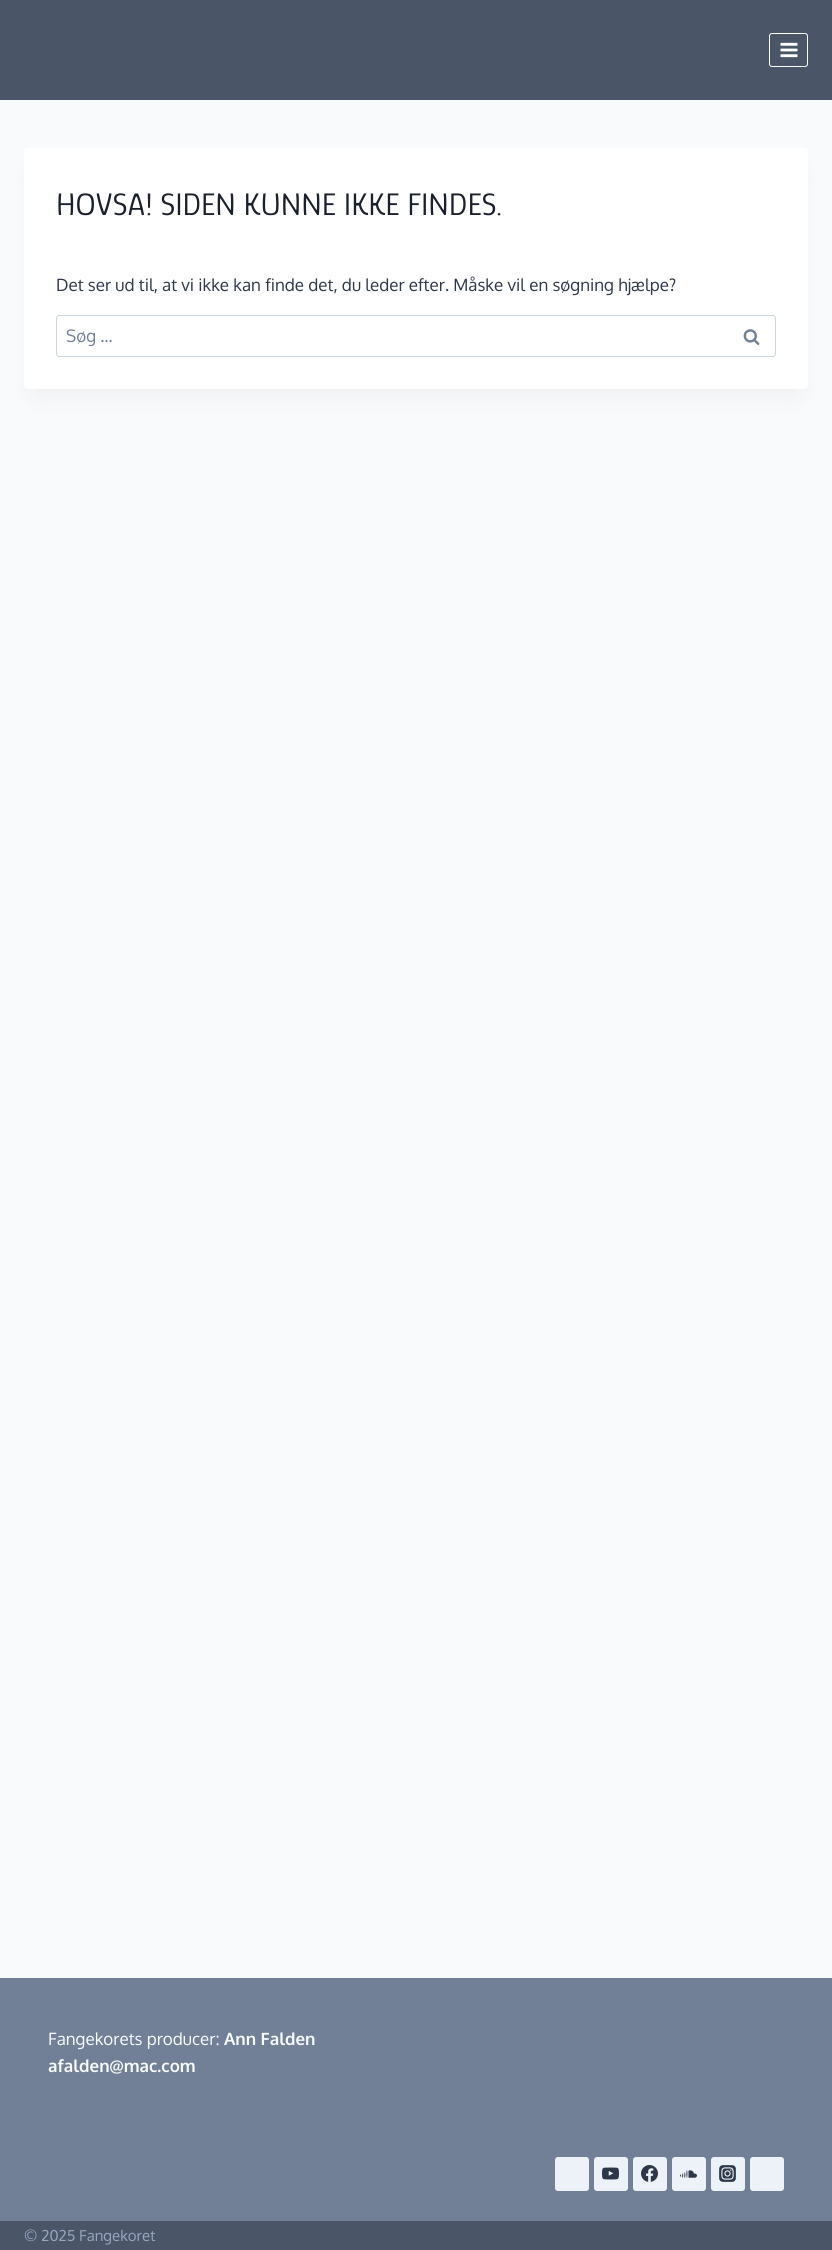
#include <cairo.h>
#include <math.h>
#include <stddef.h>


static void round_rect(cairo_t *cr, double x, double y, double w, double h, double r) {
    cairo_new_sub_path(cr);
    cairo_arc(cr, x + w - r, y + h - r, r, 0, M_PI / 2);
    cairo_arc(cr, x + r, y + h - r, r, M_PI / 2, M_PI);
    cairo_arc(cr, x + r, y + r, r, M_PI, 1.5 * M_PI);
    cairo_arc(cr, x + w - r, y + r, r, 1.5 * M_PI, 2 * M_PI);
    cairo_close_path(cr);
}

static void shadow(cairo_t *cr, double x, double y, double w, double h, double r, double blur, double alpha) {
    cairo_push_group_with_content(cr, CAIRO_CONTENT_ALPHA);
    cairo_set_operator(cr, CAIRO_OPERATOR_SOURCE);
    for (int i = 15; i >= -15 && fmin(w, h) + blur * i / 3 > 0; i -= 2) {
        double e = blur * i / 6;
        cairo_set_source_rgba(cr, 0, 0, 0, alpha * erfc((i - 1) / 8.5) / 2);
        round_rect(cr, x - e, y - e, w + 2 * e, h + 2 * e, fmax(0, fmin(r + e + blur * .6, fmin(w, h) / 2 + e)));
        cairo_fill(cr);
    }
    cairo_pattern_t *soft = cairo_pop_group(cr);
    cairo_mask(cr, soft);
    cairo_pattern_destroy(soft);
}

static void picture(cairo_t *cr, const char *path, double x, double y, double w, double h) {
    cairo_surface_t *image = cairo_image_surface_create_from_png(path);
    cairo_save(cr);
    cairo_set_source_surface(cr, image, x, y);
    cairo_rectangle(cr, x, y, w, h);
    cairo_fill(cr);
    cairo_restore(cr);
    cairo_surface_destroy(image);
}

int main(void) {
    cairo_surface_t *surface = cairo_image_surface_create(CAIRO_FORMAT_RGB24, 832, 2250);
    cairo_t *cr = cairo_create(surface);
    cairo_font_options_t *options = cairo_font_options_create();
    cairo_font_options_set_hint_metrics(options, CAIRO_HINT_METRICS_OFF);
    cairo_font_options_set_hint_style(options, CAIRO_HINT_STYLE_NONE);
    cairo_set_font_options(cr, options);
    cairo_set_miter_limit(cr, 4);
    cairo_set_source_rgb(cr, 0.969, 0.98, 0.988);
    cairo_paint(cr);
    cairo_set_source_rgb(cr, 0.29, 0.333, 0.408);
    cairo_rectangle(cr, 0, 0, 832, 100);
    cairo_fill(cr);
    round_rect(cr, 769.5, 33.5, 38, 33, 2.5);
    cairo_set_source_rgb(cr, 1, 1, 1);
    cairo_set_line_width(cr, 1);
    cairo_stroke(cr);
    picture(cr, "img1.png", 780, 42, 18, 16);
    cairo_set_source_rgb(cr, 0, 0, 0);
    shadow(cr, 34, 173, 764, 221, 0, 12.5, 0.05);
    cairo_set_source_rgb(cr, 1, 1, 1);
    round_rect(cr, 24, 148, 784, 241, 4);
    cairo_fill(cr);
    cairo_select_font_face(cr, "Glory", CAIRO_FONT_SLANT_NORMAL, CAIRO_FONT_WEIGHT_NORMAL);
    cairo_set_font_size(cr, 32);
    cairo_set_source_rgb(cr, 0.102, 0.125, 0.173);
    cairo_move_to(cr, 56, 215);
    cairo_show_text(cr, "HOVSA! SIDEN KUNNE IKKE FINDES.");
    cairo_select_font_face(cr, "Oxygen", CAIRO_FONT_SLANT_NORMAL, CAIRO_FONT_WEIGHT_NORMAL);
    cairo_set_font_size(cr, 17);
    cairo_set_source_rgb(cr, 0.176, 0.216, 0.282);
    cairo_move_to(cr, 56, 291);
    cairo_show_text(cr, "Det ser ud til, at vi ikke kan finde det, du leder efter. Måske vil en søgning hjælpe?");
    round_rect(cr, 56.5, 315.5, 719, 41, 2.5);
    cairo_set_source_rgb(cr, 0.796, 0.835, 0.878);
    cairo_stroke(cr);
    cairo_save(cr);
    cairo_rectangle(cr, 66, 325, 633, 21);
    cairo_clip(cr);
    cairo_set_source_rgb(cr, 0.443, 0.502, 0.588);
    cairo_move_to(cr, 66, 342);
    cairo_show_text(cr, "Søg …");
    cairo_restore(cr);
    picture(cr, "img2.png", 743, 329, 17, 16);
    cairo_set_source_rgb(cr, 0.443, 0.502, 0.588);
    cairo_rectangle(cr, 0, 1978, 832, 243);
    cairo_fill(cr);
    cairo_set_source_rgb(cr, 0.969, 0.98, 0.988);
    cairo_move_to(cr, 48, 2045);
    cairo_show_text(cr, "Fangekorets producer:");
    cairo_select_font_face(cr, "Oxygen", CAIRO_FONT_SLANT_NORMAL, CAIRO_FONT_WEIGHT_BOLD);
    cairo_move_to(cr, 224, 2045);
    cairo_show_text(cr, "Ann Falden");
    cairo_move_to(cr, 48, 2072);
    cairo_show_text(cr, "afalden@mac.com");
    cairo_set_source_rgb(cr, 0.929, 0.949, 0.969);
    round_rect(cr, 555, 2157, 34, 34, 3);
    cairo_fill(cr);
    round_rect(cr, 594, 2157, 34, 34, 3);
    cairo_fill(cr);
    picture(cr, "img3.png", 602, 2167, 17, 13);
    round_rect(cr, 633, 2157, 34, 34, 3);
    cairo_fill(cr);
    picture(cr, "img4.png", 641, 2165, 17, 17);
    round_rect(cr, 672, 2157, 34, 34, 3);
    cairo_fill(cr);
    picture(cr, "img5.png", 680, 2170, 17, 8);
    round_rect(cr, 711, 2157, 34, 34, 3);
    cairo_fill(cr);
    picture(cr, "img6.png", 719, 2165, 17, 17);
    round_rect(cr, 750, 2157, 34, 34, 3);
    cairo_fill(cr);
    cairo_set_source_rgb(cr, 0.29, 0.333, 0.408);
    cairo_rectangle(cr, 0, 2221, 832, 29);
    cairo_fill(cr);
    cairo_select_font_face(cr, "Oxygen", CAIRO_FONT_SLANT_NORMAL, CAIRO_FONT_WEIGHT_NORMAL);
    cairo_set_font_size(cr, 15);
    cairo_set_source_rgb(cr, 0.588, 0.655, 0.757);
    cairo_move_to(cr, 24, 2241);
    cairo_show_text(cr, "© 2025 Fangekoret");
    cairo_surface_write_to_png(surface, "page.png");
    cairo_font_options_destroy(options);
    cairo_destroy(cr);
    cairo_surface_destroy(surface);
    return 0;
}
